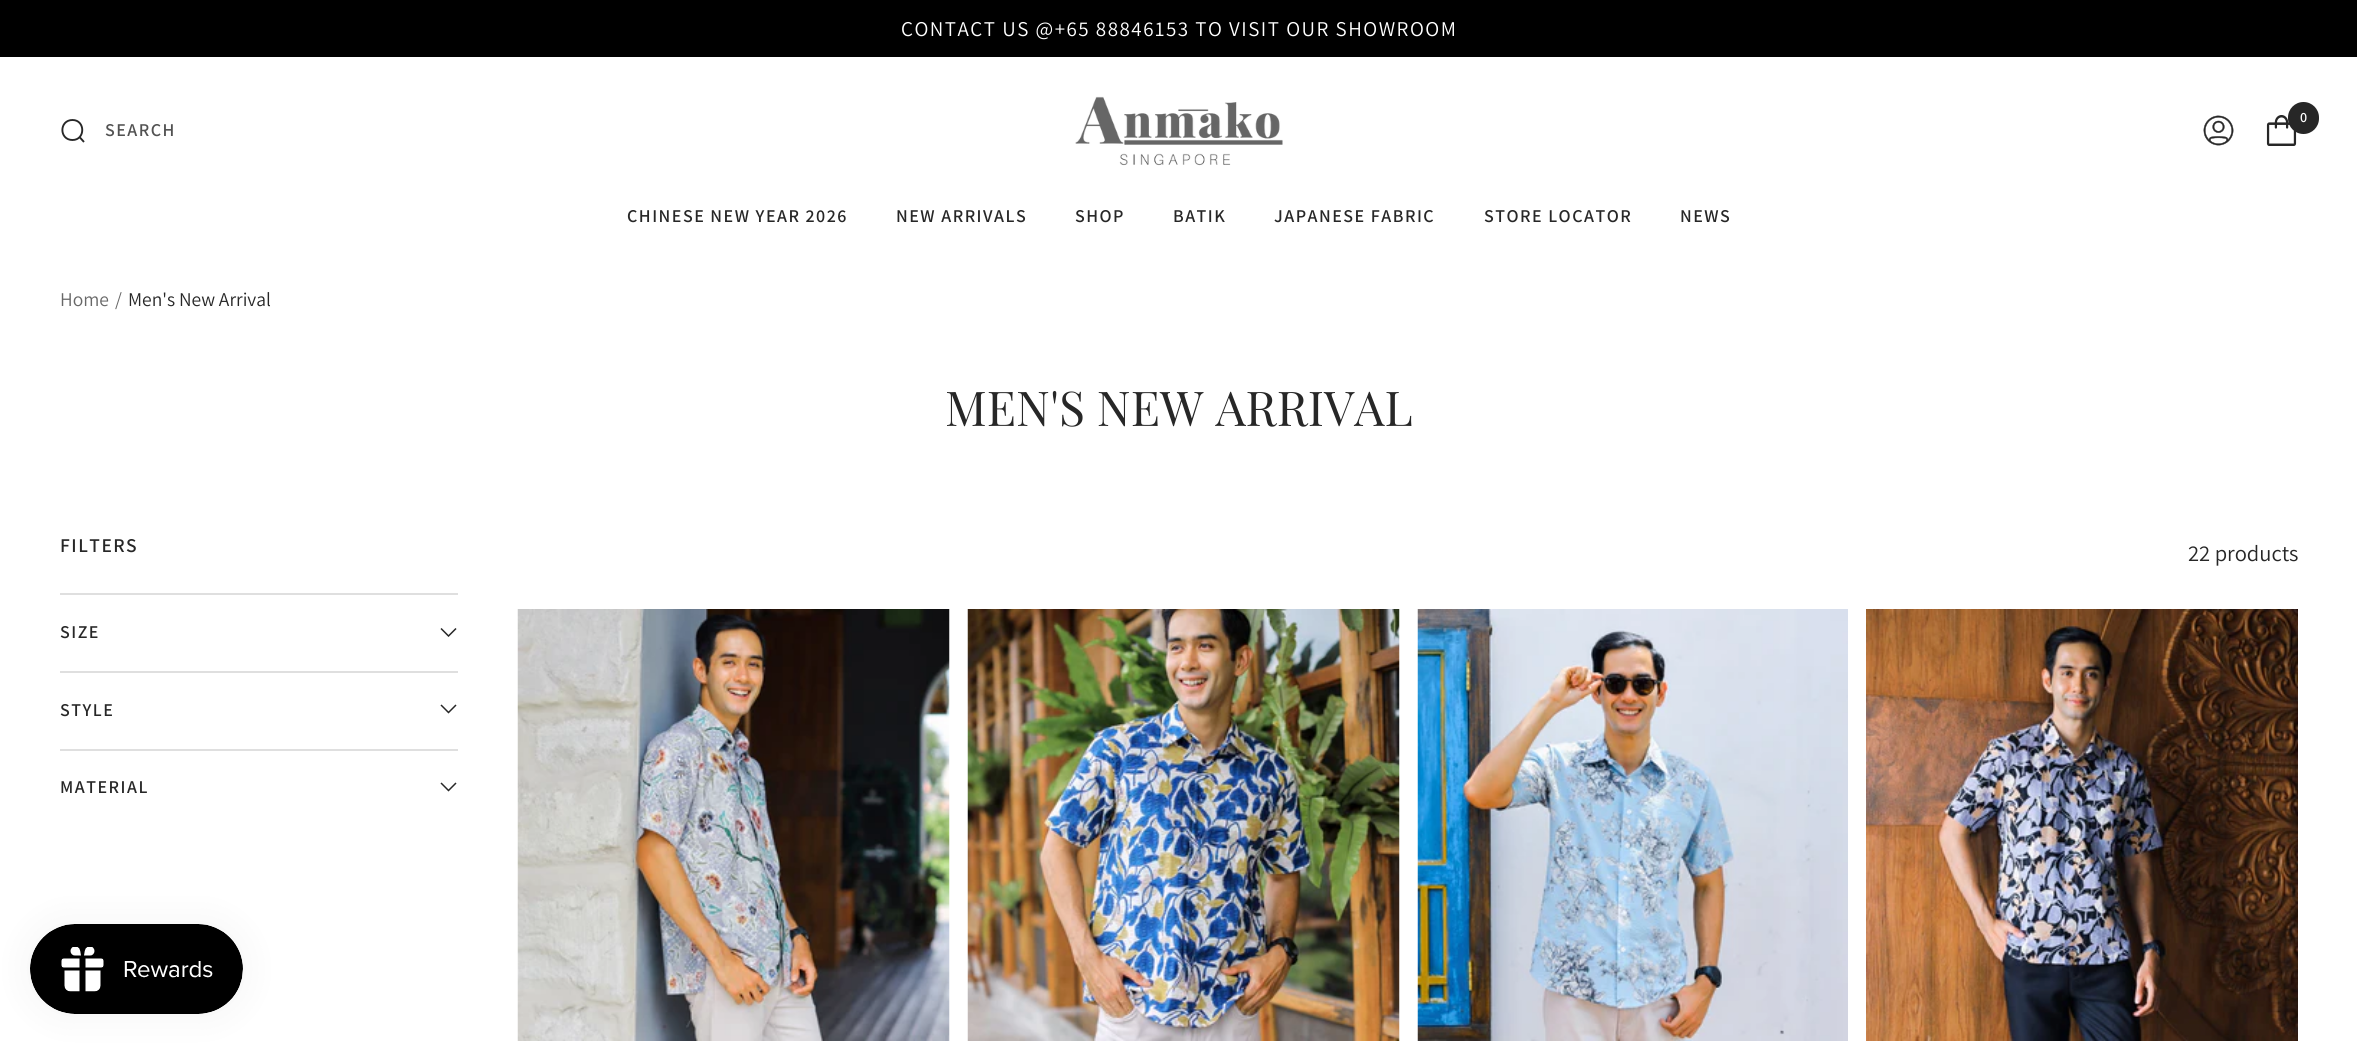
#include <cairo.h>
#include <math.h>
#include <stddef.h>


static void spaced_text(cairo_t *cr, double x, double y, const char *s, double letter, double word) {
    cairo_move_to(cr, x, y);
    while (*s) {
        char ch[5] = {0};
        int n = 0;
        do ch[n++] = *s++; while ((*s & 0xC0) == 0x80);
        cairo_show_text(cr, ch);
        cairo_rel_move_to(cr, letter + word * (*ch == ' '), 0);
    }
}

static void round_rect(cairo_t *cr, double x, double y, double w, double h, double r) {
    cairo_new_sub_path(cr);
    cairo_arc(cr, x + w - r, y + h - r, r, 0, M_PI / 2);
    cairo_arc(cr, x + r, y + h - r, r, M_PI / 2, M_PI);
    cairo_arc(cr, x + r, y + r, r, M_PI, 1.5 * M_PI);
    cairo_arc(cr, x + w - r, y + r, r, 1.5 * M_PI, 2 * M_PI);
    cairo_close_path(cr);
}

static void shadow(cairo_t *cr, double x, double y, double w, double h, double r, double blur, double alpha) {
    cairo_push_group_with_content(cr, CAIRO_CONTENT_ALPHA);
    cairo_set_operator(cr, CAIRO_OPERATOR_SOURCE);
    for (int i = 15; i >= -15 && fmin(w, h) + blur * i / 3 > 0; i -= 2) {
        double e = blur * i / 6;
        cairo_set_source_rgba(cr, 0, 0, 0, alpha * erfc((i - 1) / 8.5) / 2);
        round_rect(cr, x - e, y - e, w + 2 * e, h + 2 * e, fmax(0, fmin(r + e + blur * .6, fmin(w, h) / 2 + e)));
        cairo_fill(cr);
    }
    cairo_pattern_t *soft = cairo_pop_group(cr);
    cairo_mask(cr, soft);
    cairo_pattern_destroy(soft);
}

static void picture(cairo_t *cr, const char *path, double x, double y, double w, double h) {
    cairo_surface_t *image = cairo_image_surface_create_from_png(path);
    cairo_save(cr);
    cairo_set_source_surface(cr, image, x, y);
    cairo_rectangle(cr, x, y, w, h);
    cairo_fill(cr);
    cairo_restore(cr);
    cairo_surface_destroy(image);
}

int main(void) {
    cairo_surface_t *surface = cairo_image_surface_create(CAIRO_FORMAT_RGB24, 2357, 1044);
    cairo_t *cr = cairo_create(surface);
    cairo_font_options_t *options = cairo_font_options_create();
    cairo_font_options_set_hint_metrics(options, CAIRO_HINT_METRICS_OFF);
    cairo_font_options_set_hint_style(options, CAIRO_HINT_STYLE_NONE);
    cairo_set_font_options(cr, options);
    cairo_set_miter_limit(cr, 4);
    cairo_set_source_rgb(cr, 1, 1, 1);
    cairo_paint(cr);
    cairo_set_source_rgb(cr, 0, 0, 0);
    cairo_rectangle(cr, 0, 0, 2357, 57);
    cairo_fill(cr);
    cairo_select_font_face(cr, "Assistant", CAIRO_FONT_SLANT_NORMAL, CAIRO_FONT_WEIGHT_NORMAL);
    cairo_set_font_size(cr, 21);
    cairo_set_source_rgb(cr, 1, 1, 1);
    spaced_text(cr, 901, 36, "CONTACT US @+65 88846153 TO VISIT OUR SHOWROOM", 1.5, 0);
    picture(cr, "img1.png", 1075, 96, 208, 70);
    picture(cr, "img2.png", 2203, 115, 31, 31);
    picture(cr, "img3.png", 2266, 115, 31, 31);
    cairo_set_source_rgb(cr, 0.153, 0.153, 0.153);
    round_rect(cr, 2288, 102, 31, 32, 15.5);
    cairo_fill(cr);
    cairo_select_font_face(cr, "Assistant SemiBold", CAIRO_FONT_SLANT_NORMAL, CAIRO_FONT_WEIGHT_NORMAL);
    cairo_set_font_size(cr, 14);
    cairo_set_source_rgb(cr, 1, 1, 1);
    cairo_move_to(cr, 2300, 122);
    cairo_show_text(cr, "0");
    cairo_new_path(cr);
    cairo_move_to(cr, 79.5, 137);
    cairo_line_to(cr, 84, 142);
    cairo_move_to(cr, 72.5, 140);
    cairo_curve_to(cr, 59, 140, 59, 120, 72.5, 120);
    cairo_curve_to(cr, 85.5, 120, 85.5, 140, 72.5, 140);
    cairo_close_path(cr);
    cairo_set_source_rgb(cr, 0.153, 0.153, 0.153);
    cairo_set_line_width(cr, 1.9);
    cairo_stroke(cr);
    cairo_set_font_size(cr, 18);
    cairo_set_source_rgb(cr, 0.322, 0.322, 0.322);
    spaced_text(cr, 105, 136, "SEARCH", 1.5, 0);
    cairo_set_source_rgb(cr, 0.153, 0.153, 0.153);
    spaced_text(cr, 627, 222, "CHINESE NEW YEAR 2026", 1.5, 0);
    spaced_text(cr, 896, 222, "NEW ARRIVALS", 1.5, 0);
    spaced_text(cr, 1075, 222, "SHOP", 1.5, 0);
    spaced_text(cr, 1173, 222, "BATIK", 1.5, 0);
    spaced_text(cr, 1274, 222, "JAPANESE FABRIC", 1.5, 0);
    spaced_text(cr, 1484, 222, "STORE LOCATOR", 1.5, 0);
    spaced_text(cr, 1680, 222, "NEWS", 1.5, 0);
    cairo_select_font_face(cr, "Assistant", CAIRO_FONT_SLANT_NORMAL, CAIRO_FONT_WEIGHT_NORMAL);
    cairo_set_font_size(cr, 19.5);
    cairo_set_source_rgb(cr, 0.408, 0.408, 0.408);
    cairo_move_to(cr, 60, 306);
    cairo_show_text(cr, "Home");
    cairo_move_to(cr, 115, 306);
    cairo_show_text(cr, "/");
    cairo_set_source_rgb(cr, 0.153, 0.153, 0.153);
    cairo_move_to(cr, 128, 306);
    cairo_show_text(cr, "Men's New Arrival");
    cairo_select_font_face(cr, "Playfair Display", CAIRO_FONT_SLANT_NORMAL, CAIRO_FONT_WEIGHT_NORMAL);
    cairo_set_font_size(cr, 48);
    cairo_move_to(cr, 945, 426);
    cairo_show_text(cr, "MEN'S NEW ARRIVAL");
    cairo_set_source_rgb(cr, 0.875, 0.875, 0.875);
    cairo_rectangle(cr, 60, 593, 398, 2);
    cairo_fill(cr);
    cairo_select_font_face(cr, "Assistant SemiBold", CAIRO_FONT_SLANT_NORMAL, CAIRO_FONT_WEIGHT_NORMAL);
    cairo_set_font_size(cr, 19.5);
    cairo_set_source_rgb(cr, 0.153, 0.153, 0.153);
    spaced_text(cr, 60, 552, "FILTERS", 1.5, 0);
    cairo_set_font_size(cr, 18);
    spaced_text(cr, 60, 638, "SIZE", 1.5, 0);
    cairo_new_path(cr);
    cairo_move_to(cr, 441, 628.5);
    cairo_line_to(cr, 448.5, 636);
    cairo_line_to(cr, 456, 628.5);
    cairo_set_line_width(cr, 1.5);
    cairo_stroke(cr);
    cairo_set_source_rgb(cr, 0.875, 0.875, 0.875);
    cairo_rectangle(cr, 60, 671, 398, 2);
    cairo_fill(cr);
    cairo_set_source_rgb(cr, 0.153, 0.153, 0.153);
    spaced_text(cr, 60, 716, "STYLE", 1.5, 0);
    cairo_new_path(cr);
    cairo_move_to(cr, 441, 705);
    cairo_line_to(cr, 448.5, 712.5);
    cairo_line_to(cr, 456, 705);
    cairo_stroke(cr);
    cairo_set_source_rgb(cr, 0.875, 0.875, 0.875);
    cairo_rectangle(cr, 60, 749, 398, 2);
    cairo_fill(cr);
    cairo_set_source_rgb(cr, 0.153, 0.153, 0.153);
    spaced_text(cr, 60, 793, "MATERIAL", 1.5, 0);
    cairo_new_path(cr);
    cairo_move_to(cr, 441, 783);
    cairo_line_to(cr, 448.5, 790.5);
    cairo_line_to(cr, 456, 783);
    cairo_stroke(cr);
    cairo_select_font_face(cr, "Assistant", CAIRO_FONT_SLANT_NORMAL, CAIRO_FONT_WEIGHT_NORMAL);
    cairo_set_font_size(cr, 22.5);
    cairo_move_to(cr, 2188, 561);
    cairo_show_text(cr, "22 products");
    picture(cr, "img4.png", 517, 609, 433, 432);
    picture(cr, "img5.png", 967, 609, 433, 432);
    picture(cr, "img6.png", 1417, 609, 431, 432);
    picture(cr, "img7.png", 1866, 609, 432, 432);
    cairo_set_source_rgb(cr, 0, 0, 0);
    shadow(cr, 30, 924, 213, 90, 45, 19, 0.05);
    picture(cr, "img8.png", 30, 924, 213, 90);
    cairo_surface_write_to_png(surface, "page.png");
    cairo_font_options_destroy(options);
    cairo_destroy(cr);
    cairo_surface_destroy(surface);
    return 0;
}
